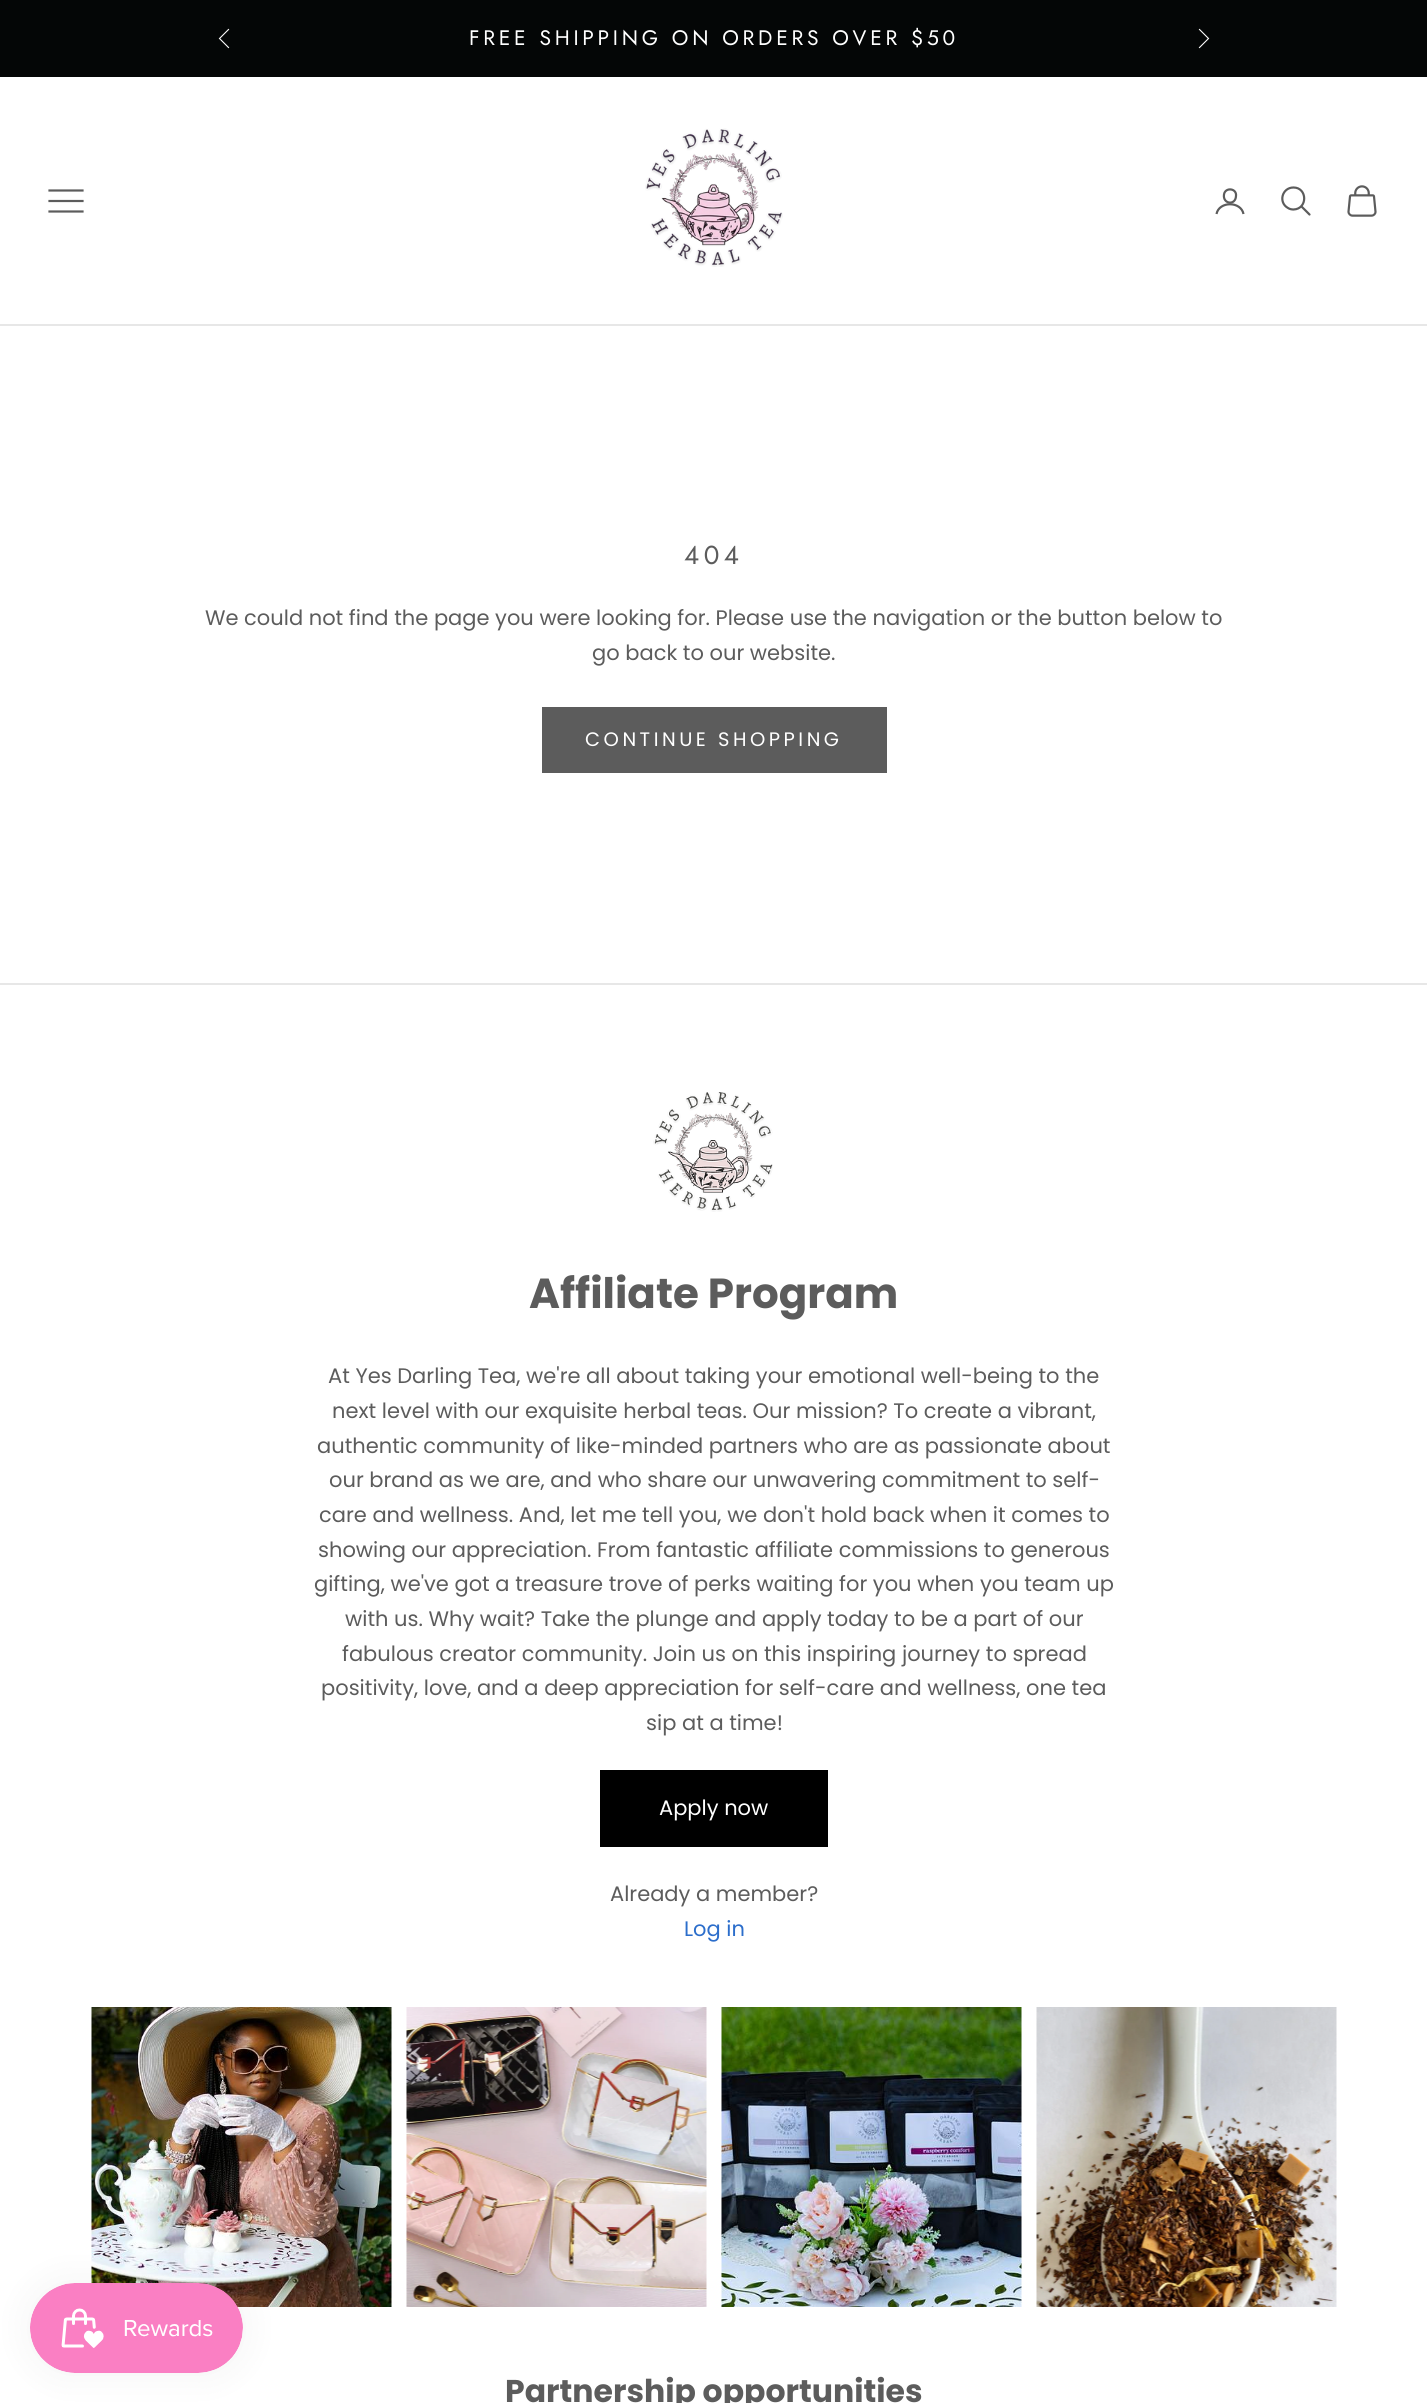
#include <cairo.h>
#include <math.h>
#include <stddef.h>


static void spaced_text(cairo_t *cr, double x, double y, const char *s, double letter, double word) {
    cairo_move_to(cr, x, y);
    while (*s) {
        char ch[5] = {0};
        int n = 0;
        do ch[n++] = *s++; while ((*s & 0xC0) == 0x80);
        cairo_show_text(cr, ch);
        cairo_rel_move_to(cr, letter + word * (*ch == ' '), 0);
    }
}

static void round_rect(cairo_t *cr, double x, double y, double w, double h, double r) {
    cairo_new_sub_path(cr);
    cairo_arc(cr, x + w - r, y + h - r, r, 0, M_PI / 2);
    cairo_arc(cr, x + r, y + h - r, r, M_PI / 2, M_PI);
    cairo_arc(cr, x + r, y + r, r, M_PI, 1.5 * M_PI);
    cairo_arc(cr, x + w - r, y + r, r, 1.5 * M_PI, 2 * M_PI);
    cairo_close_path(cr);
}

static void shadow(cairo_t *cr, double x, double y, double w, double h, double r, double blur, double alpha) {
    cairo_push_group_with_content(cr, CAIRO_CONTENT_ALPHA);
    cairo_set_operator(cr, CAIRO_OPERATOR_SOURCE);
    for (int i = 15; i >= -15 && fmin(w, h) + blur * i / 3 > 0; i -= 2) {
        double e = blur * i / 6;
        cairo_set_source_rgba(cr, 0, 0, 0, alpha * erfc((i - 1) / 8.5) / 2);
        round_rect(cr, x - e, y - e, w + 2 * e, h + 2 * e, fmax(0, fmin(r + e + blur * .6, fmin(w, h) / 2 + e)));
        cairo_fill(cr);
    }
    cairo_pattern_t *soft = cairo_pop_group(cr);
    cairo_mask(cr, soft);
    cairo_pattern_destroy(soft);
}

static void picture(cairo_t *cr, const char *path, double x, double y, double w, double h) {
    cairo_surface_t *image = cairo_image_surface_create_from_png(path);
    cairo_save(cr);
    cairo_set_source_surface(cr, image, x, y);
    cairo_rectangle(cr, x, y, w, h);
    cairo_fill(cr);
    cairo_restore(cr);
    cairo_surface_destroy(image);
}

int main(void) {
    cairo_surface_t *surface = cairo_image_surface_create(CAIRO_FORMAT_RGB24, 1427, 2403);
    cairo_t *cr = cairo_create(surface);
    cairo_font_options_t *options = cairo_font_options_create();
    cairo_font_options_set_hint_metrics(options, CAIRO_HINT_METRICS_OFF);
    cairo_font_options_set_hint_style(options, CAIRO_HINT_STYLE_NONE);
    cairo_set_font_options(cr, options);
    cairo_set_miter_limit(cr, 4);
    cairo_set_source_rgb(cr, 1, 1, 1);
    cairo_paint(cr);
    cairo_set_source_rgb(cr, 0.016, 0.024, 0.024);
    cairo_rectangle(cr, 0, 0, 1427, 77);
    cairo_fill(cr);
    cairo_new_path(cr);
    cairo_move_to(cr, 228.5, 29.5);
    cairo_line_to(cr, 219.5, 38.5);
    cairo_line_to(cr, 228.5, 47.5);
    cairo_set_source_rgb(cr, 1, 1, 1);
    cairo_set_line_width(cr, 1.1);
    cairo_set_line_cap(cr, CAIRO_LINE_CAP_SQUARE);
    cairo_stroke(cr);
    cairo_select_font_face(cr, "Jost", CAIRO_FONT_SLANT_NORMAL, CAIRO_FONT_WEIGHT_NORMAL);
    cairo_set_font_size(cr, 21);
    spaced_text(cr, 469, 45, "FREE SHIPPING ON ORDERS OVER $50", 3.75, 0);
    cairo_new_path(cr);
    cairo_move_to(cr, 1199.5, 47.5);
    cairo_line_to(cr, 1208.5, 38.5);
    cairo_line_to(cr, 1199.5, 29.5);
    cairo_stroke(cr);
    cairo_set_source_rgb(cr, 0.906, 0.906, 0.906);
    cairo_rectangle(cr, 0, 324, 1427, 2);
    cairo_fill(cr);
    cairo_new_path(cr);
    cairo_move_to(cr, 49.5, 211.5);
    cairo_line_to(cr, 82.5, 211.5);
    cairo_move_to(cr, 49.5, 201);
    cairo_line_to(cr, 82.5, 201);
    cairo_move_to(cr, 49.5, 190.5);
    cairo_line_to(cr, 82.5, 190.5);
    cairo_set_source_rgb(cr, 0.361, 0.361, 0.361);
    cairo_set_line_width(cr, 2.2);
    cairo_stroke(cr);
    picture(cr, "img1.png", 645, 128, 138, 139);
    cairo_new_path(cr);
    cairo_move_to(cr, 1236, 196);
    cairo_curve_to(cr, 1235.5, 206, 1222.5, 204, 1224, 194.5);
    cairo_curve_to(cr, 1225, 187, 1237, 188, 1236, 196);
    cairo_close_path(cr);
    cairo_set_line_cap(cr, CAIRO_LINE_CAP_ROUND);
    cairo_set_line_join(cr, CAIRO_LINE_JOIN_ROUND);
    cairo_stroke(cr);
    cairo_new_path(cr);
    cairo_move_to(cr, 1216.5, 214);
    cairo_curve_to(cr, 1219, 201, 1241, 201, 1243.5, 214);
    cairo_set_line_cap(cr, CAIRO_LINE_CAP_BUTT);
    cairo_set_line_join(cr, CAIRO_LINE_JOIN_MITER);
    cairo_stroke(cr);
    cairo_new_path(cr);
    cairo_move_to(cr, 1293.5, 187.5);
    cairo_curve_to(cr, 1282, 187.5, 1278, 202.5, 1288, 208);
    cairo_curve_to(cr, 1289.5, 209, 1291.5, 209.5, 1293.5, 209.5);
    cairo_curve_to(cr, 1308, 209, 1307.5, 187.5, 1293.5, 187.5);
    cairo_close_path(cr);
    cairo_stroke(cr);
    cairo_new_path(cr);
    cairo_move_to(cr, 1302, 207);
    cairo_line_to(cr, 1309.5, 214.5);
    cairo_set_line_cap(cr, CAIRO_LINE_CAP_ROUND);
    cairo_stroke(cr);
    picture(cr, "img2.png", 1347, 185, 30, 32);
    picture(cr, "img5.png", 91, 2007, 301, 300);
    cairo_set_source_rgb(cr, 0, 0, 0);
    shadow(cr, 30, 2283, 213, 90, 45, 19, 0.05);
    picture(cr, "img3.png", 30, 2283, 213, 90);
    cairo_set_font_size(cr, 26);
    cairo_set_source_rgb(cr, 0.361, 0.361, 0.361);
    spaced_text(cr, 684, 564, "404", 4.5, 0);
    cairo_select_font_face(cr, "Poppins", CAIRO_FONT_SLANT_NORMAL, CAIRO_FONT_WEIGHT_NORMAL);
    cairo_set_font_size(cr, 21);
    cairo_move_to(cr, 205, 625);
    cairo_show_text(cr, "We could not find the page you were looking for. Please use the navigation or the button below to");
    cairo_move_to(cr, 592, 660);
    cairo_show_text(cr, "go back to our website.");
    cairo_rectangle(cr, 543, 708, 343, 64);
    cairo_fill_preserve(cr);
    cairo_set_line_width(cr, 2);
    cairo_set_line_cap(cr, CAIRO_LINE_CAP_BUTT);
    cairo_stroke(cr);
    cairo_set_font_size(cr, 19.5);
    cairo_set_source_rgb(cr, 1, 1, 1);
    spaced_text(cr, 585, 746, "CONTINUE SHOPPING", 3.5, 0);
    cairo_set_source_rgb(cr, 0.906, 0.906, 0.906);
    cairo_rectangle(cr, 0, 983, 1427, 2);
    cairo_fill(cr);
    picture(cr, "img4.png", 653, 1092, 120, 120);
    cairo_select_font_face(cr, "Poppins", CAIRO_FONT_SLANT_NORMAL, CAIRO_FONT_WEIGHT_BOLD);
    cairo_set_font_size(cr, 42);
    cairo_set_source_rgb(cr, 0.361, 0.361, 0.361);
    cairo_move_to(cr, 529, 1308);
    cairo_show_text(cr, "Affiliate Program");
    cairo_select_font_face(cr, "Poppins", CAIRO_FONT_SLANT_NORMAL, CAIRO_FONT_WEIGHT_NORMAL);
    cairo_set_font_size(cr, 21);
    cairo_move_to(cr, 328, 1383);
    cairo_show_text(cr, "At Yes Darling Tea, we're all about taking your emotional well-being to the");
    cairo_move_to(cr, 332, 1418);
    cairo_show_text(cr, "next level with our exquisite herbal teas. Our mission? To create a vibrant,");
    cairo_move_to(cr, 317, 1453);
    cairo_show_text(cr, "authentic community of like-minded partners who are as passionate about");
    cairo_move_to(cr, 329, 1487);
    cairo_show_text(cr, "our brand as we are, and who share our unwavering commitment to self-");
    cairo_move_to(cr, 319, 1522);
    cairo_show_text(cr, "care and wellness. And, let me tell you, we don't hold back when it comes to");
    cairo_move_to(cr, 318, 1557);
    cairo_show_text(cr, "showing our appreciation. From fantastic affiliate commissions to generous");
    cairo_move_to(cr, 314, 1591);
    cairo_show_text(cr, "gifting, we've got a treasure trove of perks waiting for you when you team up");
    cairo_move_to(cr, 345, 1626);
    cairo_show_text(cr, "with us. Why wait? Take the plunge and apply today to be a part of our");
    cairo_move_to(cr, 342, 1661);
    cairo_show_text(cr, "fabulous creator community. Join us on this inspiring journey to spread");
    cairo_move_to(cr, 321, 1695);
    cairo_show_text(cr, "positivity, love, and a deep appreciation for self-care and wellness, one tea");
    cairo_move_to(cr, 646, 1730);
    cairo_show_text(cr, "sip at a time!");
    cairo_set_source_rgb(cr, 0, 0, 0);
    cairo_rectangle(cr, 600, 1770, 228, 77);
    cairo_fill(cr);
    cairo_set_source_rgb(cr, 1, 1, 1);
    cairo_move_to(cr, 659, 1815);
    cairo_show_text(cr, "Apply now");
    cairo_set_source_rgb(cr, 0.361, 0.361, 0.361);
    cairo_move_to(cr, 610, 1901);
    cairo_show_text(cr, "Already a member?");
    cairo_set_source_rgb(cr, 0.173, 0.431, 0.796);
    cairo_move_to(cr, 684, 1936);
    cairo_show_text(cr, "Log in");
    picture(cr, "img6.png", 406, 2007, 301, 300);
    picture(cr, "img7.png", 721, 2007, 301, 300);
    picture(cr, "img8.png", 1036, 2007, 301, 300);
    cairo_select_font_face(cr, "Poppins", CAIRO_FONT_SLANT_NORMAL, CAIRO_FONT_WEIGHT_BOLD);
    cairo_set_font_size(cr, 31.5);
    cairo_set_source_rgb(cr, 0.361, 0.361, 0.361);
    cairo_move_to(cr, 505, 2402);
    cairo_show_text(cr, "Partnership opportunities");
    cairo_surface_write_to_png(surface, "page.png");
    cairo_font_options_destroy(options);
    cairo_destroy(cr);
    cairo_surface_destroy(surface);
    return 0;
}
